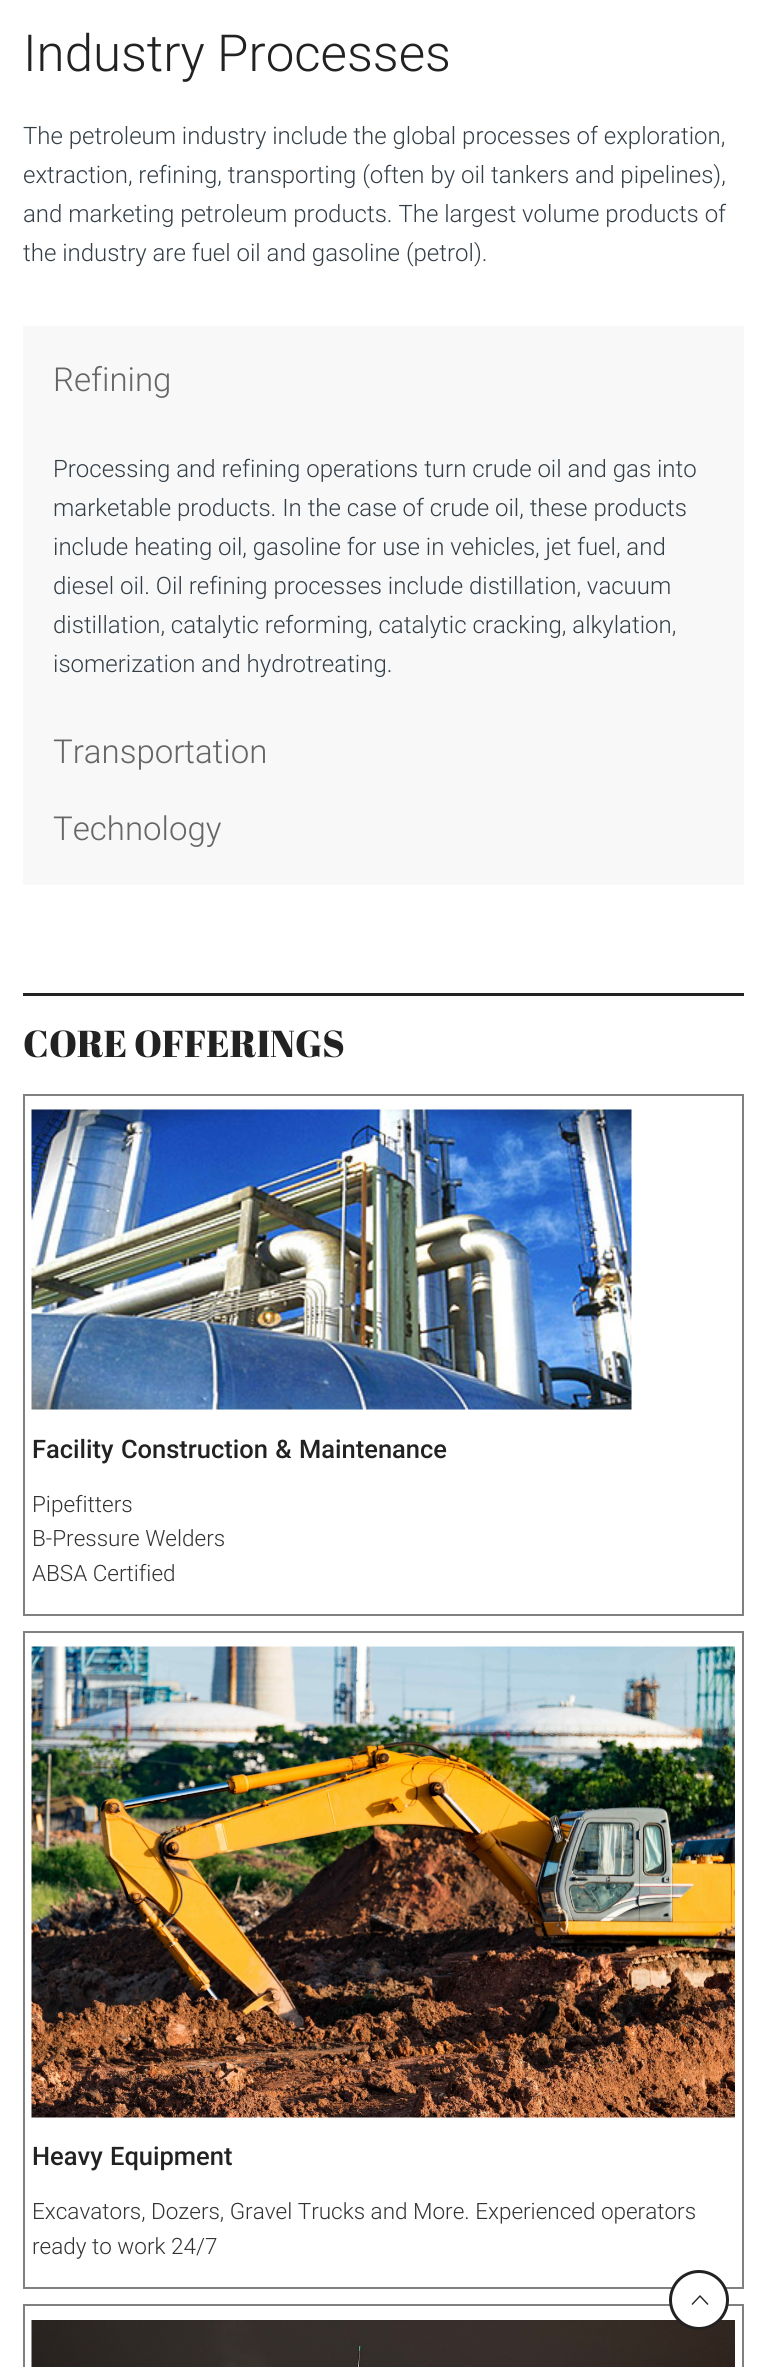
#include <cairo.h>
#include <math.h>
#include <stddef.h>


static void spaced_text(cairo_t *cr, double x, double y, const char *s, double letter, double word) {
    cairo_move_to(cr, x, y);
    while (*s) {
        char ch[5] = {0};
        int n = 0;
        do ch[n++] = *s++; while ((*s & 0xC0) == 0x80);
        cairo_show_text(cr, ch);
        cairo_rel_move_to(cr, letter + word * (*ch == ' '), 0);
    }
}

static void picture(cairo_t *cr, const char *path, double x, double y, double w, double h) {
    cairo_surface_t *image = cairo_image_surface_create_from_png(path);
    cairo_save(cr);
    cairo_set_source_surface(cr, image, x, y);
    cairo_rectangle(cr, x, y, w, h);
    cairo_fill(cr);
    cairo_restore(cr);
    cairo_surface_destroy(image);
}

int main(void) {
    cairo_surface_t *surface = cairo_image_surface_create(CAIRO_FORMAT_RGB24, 766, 2367);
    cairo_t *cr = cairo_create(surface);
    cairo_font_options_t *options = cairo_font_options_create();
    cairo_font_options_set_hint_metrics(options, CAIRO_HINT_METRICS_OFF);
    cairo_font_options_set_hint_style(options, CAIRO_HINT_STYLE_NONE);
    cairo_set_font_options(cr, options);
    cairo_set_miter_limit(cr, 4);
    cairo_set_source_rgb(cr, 1, 1, 1);
    cairo_paint(cr);
    cairo_select_font_face(cr, "Roboto Light", CAIRO_FONT_SLANT_NORMAL, CAIRO_FONT_WEIGHT_NORMAL);
    cairo_set_font_size(cr, 51);
    cairo_set_source_rgb(cr, 0.133, 0.133, 0.133);
    cairo_move_to(cr, 23, 71);
    cairo_show_text(cr, "Industry Processes");
    cairo_set_font_size(cr, 24);
    cairo_set_source_rgb(cr, 0.204, 0.243, 0.278);
    cairo_move_to(cr, 23, 144);
    cairo_show_text(cr, "The petroleum industry include the global processes of exploration,");
    cairo_move_to(cr, 23, 183);
    cairo_show_text(cr, "extraction, refining, transporting (often by oil tankers and pipelines),");
    cairo_move_to(cr, 23, 222);
    cairo_show_text(cr, "and marketing petroleum products. The largest volume products of");
    cairo_move_to(cr, 23, 261);
    cairo_show_text(cr, "the industry are fuel oil and gasoline (petrol).");
    cairo_set_source_rgb(cr, 0.969, 0.969, 0.969);
    cairo_rectangle(cr, 23, 326, 721, 559);
    cairo_fill(cr);
    cairo_set_font_size(cr, 33);
    cairo_set_source_rgb(cr, 0.4, 0.4, 0.4);
    cairo_move_to(cr, 53, 391);
    cairo_show_text(cr, "Refining");
    cairo_set_font_size(cr, 24);
    cairo_set_source_rgb(cr, 0.204, 0.243, 0.278);
    cairo_move_to(cr, 53, 477);
    cairo_show_text(cr, "Processing and refining operations turn crude oil and gas into");
    cairo_move_to(cr, 53, 516);
    cairo_show_text(cr, "marketable products. In the case of crude oil, these products");
    cairo_move_to(cr, 53, 555);
    cairo_show_text(cr, "include heating oil, gasoline for use in vehicles, jet fuel, and");
    cairo_move_to(cr, 53, 594);
    cairo_show_text(cr, "diesel oil. Oil refining processes include distillation, vacuum");
    cairo_move_to(cr, 53, 633);
    cairo_show_text(cr, "distillation, catalytic reforming, catalytic cracking, alkylation,");
    cairo_move_to(cr, 53, 672);
    cairo_show_text(cr, "isomerization and hydrotreating.");
    cairo_set_font_size(cr, 33);
    cairo_set_source_rgb(cr, 0.4, 0.4, 0.4);
    cairo_move_to(cr, 53, 763);
    cairo_show_text(cr, "Transportation");
    cairo_move_to(cr, 53, 840);
    cairo_show_text(cr, "Technology");
    cairo_set_source_rgb(cr, 0.133, 0.133, 0.133);
    cairo_rectangle(cr, 23, 993, 721, 3);
    cairo_fill(cr);
    cairo_select_font_face(cr, "Abril Fatface", CAIRO_FONT_SLANT_NORMAL, CAIRO_FONT_WEIGHT_NORMAL);
    cairo_set_font_size(cr, 37.5);
    cairo_move_to(cr, 23, 1057);
    cairo_show_text(cr, "CORE OFFERINGS");
    cairo_rectangle(cr, 24, 1095, 719, 520);
    cairo_set_source_rgb(cr, 0.502, 0.502, 0.502);
    cairo_stroke(cr);
    picture(cr, "img1.png", 31, 1109, 601, 301);
    cairo_select_font_face(cr, "Roboto Medium", CAIRO_FONT_SLANT_NORMAL, CAIRO_FONT_WEIGHT_NORMAL);
    cairo_set_font_size(cr, 25.5);
    cairo_set_source_rgb(cr, 0.133, 0.133, 0.133);
    spaced_text(cr, 32, 1458, "Facility Construction & Maintenance", 0, 1);
    cairo_select_font_face(cr, "Roboto Light", CAIRO_FONT_SLANT_NORMAL, CAIRO_FONT_WEIGHT_NORMAL);
    cairo_set_font_size(cr, 22.5);
    cairo_set_source_rgb(cr, 0.2, 0.2, 0.2);
    cairo_move_to(cr, 32, 1512);
    cairo_show_text(cr, "Pipefitters");
    cairo_move_to(cr, 32, 1546);
    cairo_show_text(cr, "B-Pressure Welders");
    cairo_move_to(cr, 32, 1581);
    cairo_show_text(cr, "ABSA Certified");
    cairo_rectangle(cr, 24, 1632, 719, 656);
    cairo_set_source_rgb(cr, 0.502, 0.502, 0.502);
    cairo_stroke(cr);
    picture(cr, "img2.png", 31, 1646, 704, 472);
    cairo_select_font_face(cr, "Roboto Medium", CAIRO_FONT_SLANT_NORMAL, CAIRO_FONT_WEIGHT_NORMAL);
    cairo_set_font_size(cr, 25.5);
    cairo_set_source_rgb(cr, 0.133, 0.133, 0.133);
    spaced_text(cr, 32, 2165, "Heavy Equipment", 0, 1);
    cairo_select_font_face(cr, "Roboto Light", CAIRO_FONT_SLANT_NORMAL, CAIRO_FONT_WEIGHT_NORMAL);
    cairo_set_font_size(cr, 22.5);
    cairo_set_source_rgb(cr, 0.2, 0.2, 0.2);
    cairo_move_to(cr, 32, 2219);
    cairo_show_text(cr, "Excavators, Dozers, Gravel Trucks and More. Experienced operators");
    cairo_move_to(cr, 32, 2254);
    cairo_show_text(cr, "ready to work 24/7");
    cairo_rectangle(cr, 24, 2305, 719, 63);
    cairo_set_source_rgb(cr, 0.502, 0.502, 0.502);
    cairo_stroke(cr);
    picture(cr, "img3.png", 31, 2320, 704, 47);
    cairo_set_source_rgb(cr, 1, 1, 1);
    cairo_arc(cr, 699, 2300, 28.5, 0, 2 * M_PI);
    cairo_fill_preserve(cr);
    cairo_set_source_rgb(cr, 0.133, 0.133, 0.133);
    cairo_set_line_width(cr, 3);
    cairo_stroke(cr);
    cairo_new_path(cr);
    cairo_move_to(cr, 707.5, 2305);
    cairo_line_to(cr, 700, 2297);
    cairo_line_to(cr, 692.5, 2305);
    cairo_line_to(cr, 691.5, 2304);
    cairo_line_to(cr, 700, 2295);
    cairo_line_to(cr, 708.5, 2304);
    cairo_close_path(cr);
    cairo_fill(cr);
    cairo_surface_write_to_png(surface, "page.png");
    cairo_font_options_destroy(options);
    cairo_destroy(cr);
    cairo_surface_destroy(surface);
    return 0;
}
